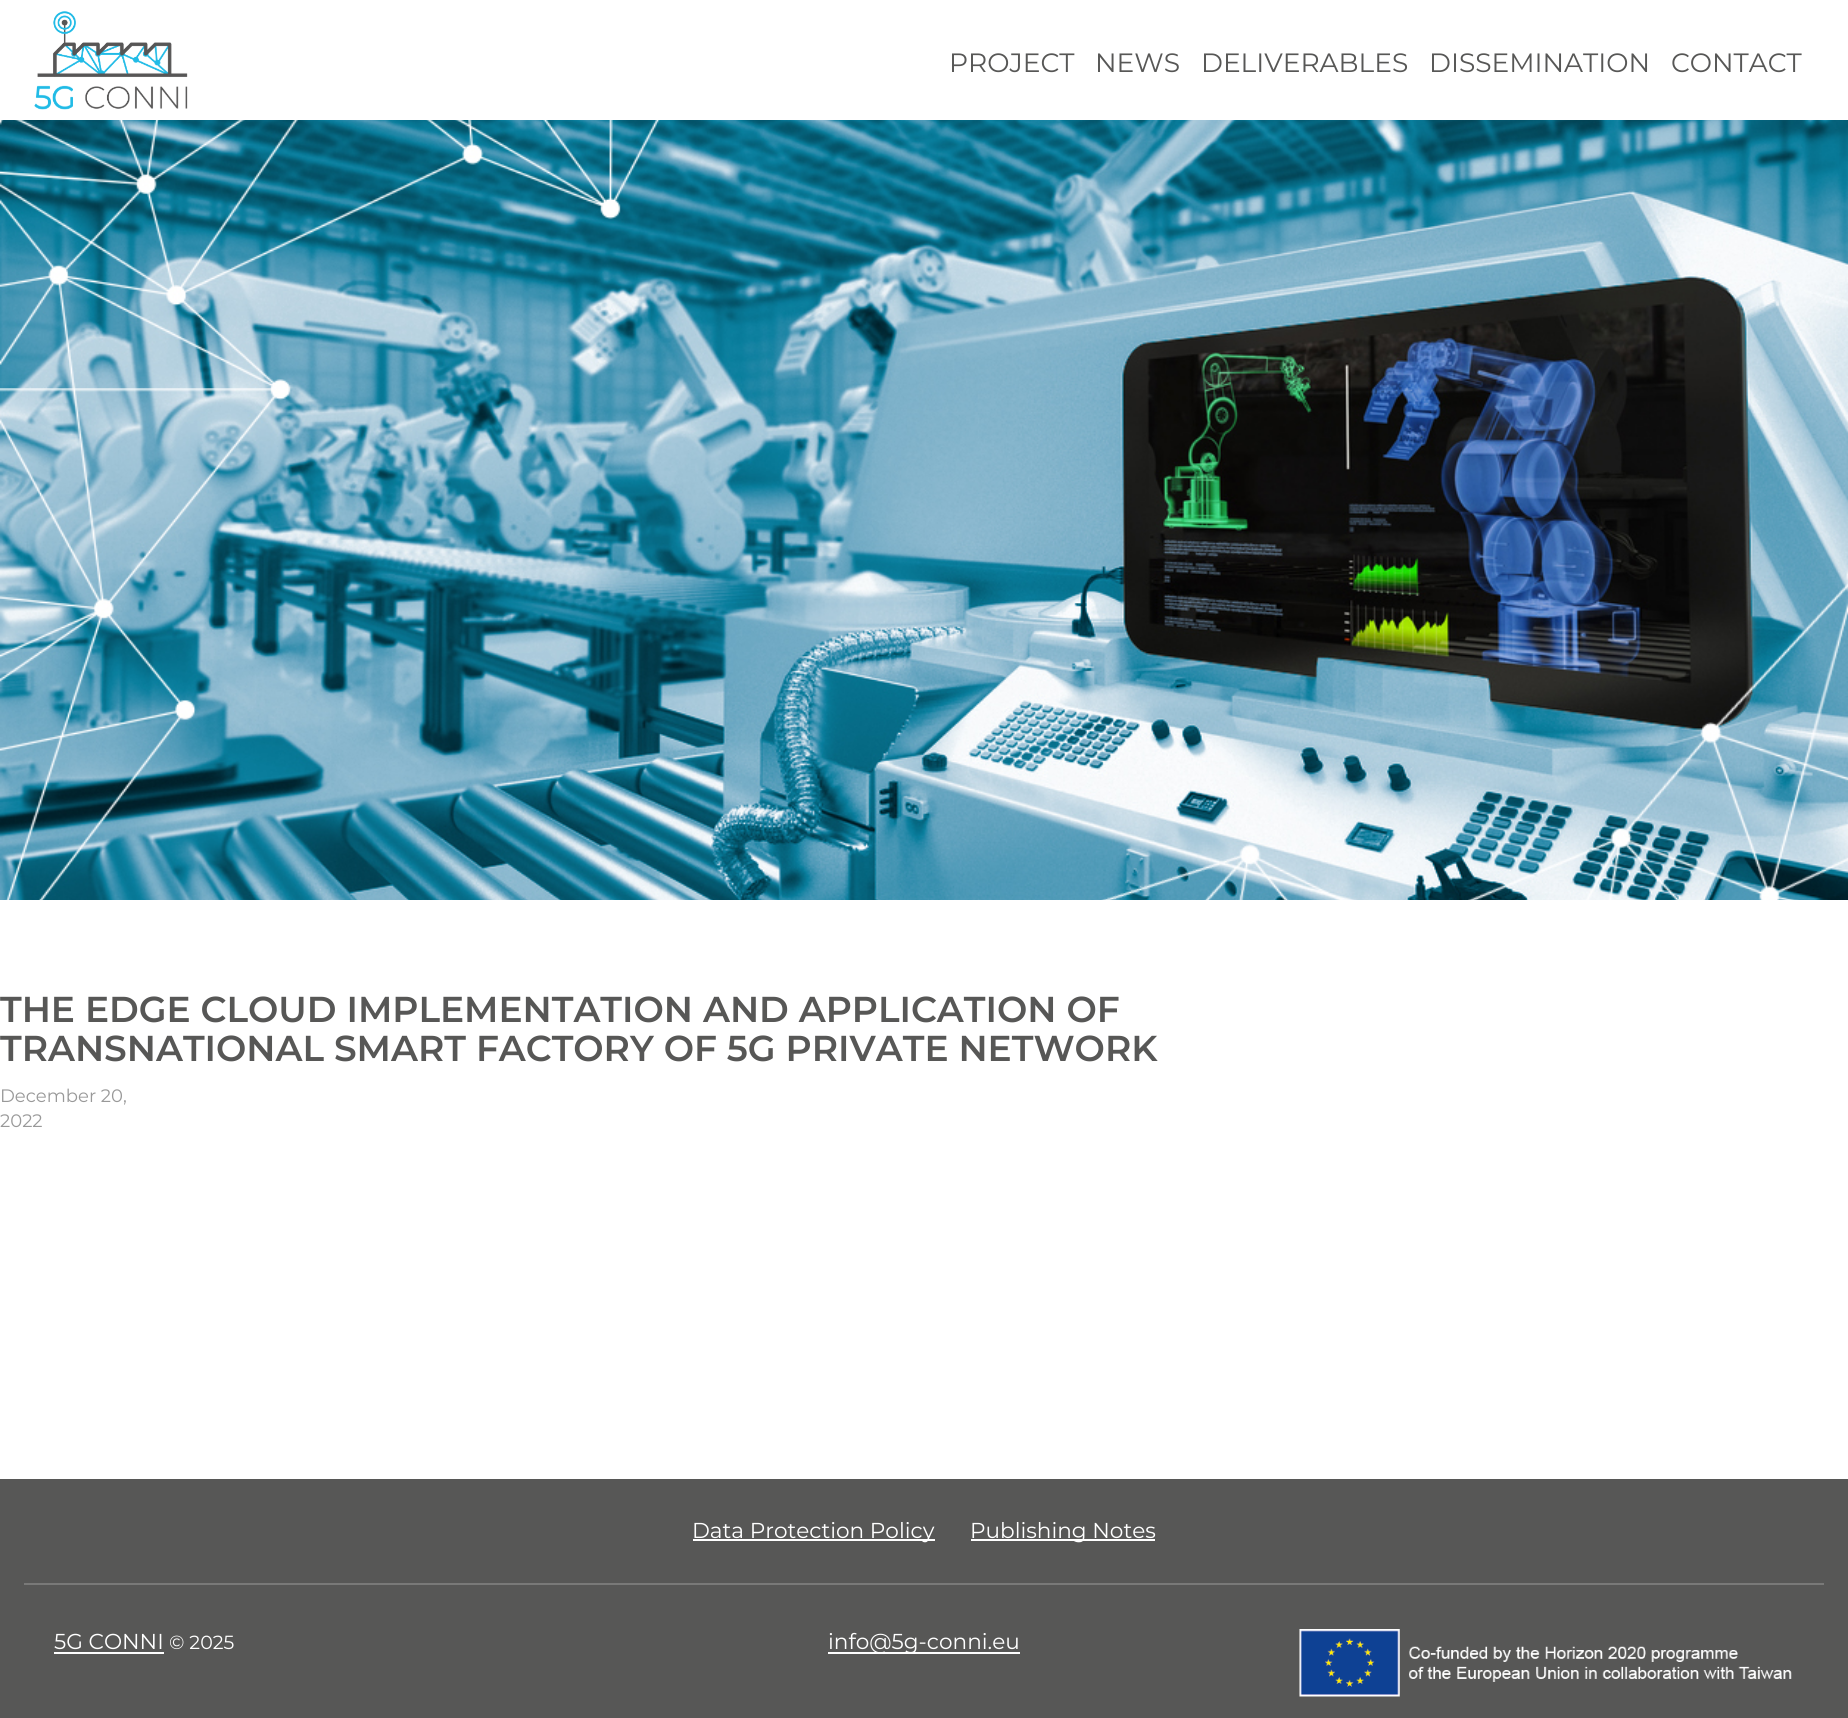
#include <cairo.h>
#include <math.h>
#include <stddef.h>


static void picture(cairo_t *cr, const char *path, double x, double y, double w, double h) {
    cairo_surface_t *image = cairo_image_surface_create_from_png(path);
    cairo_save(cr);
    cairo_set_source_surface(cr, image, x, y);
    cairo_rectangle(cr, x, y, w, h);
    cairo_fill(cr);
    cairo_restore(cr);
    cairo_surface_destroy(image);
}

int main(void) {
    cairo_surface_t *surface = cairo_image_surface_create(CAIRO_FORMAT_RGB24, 1848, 1718);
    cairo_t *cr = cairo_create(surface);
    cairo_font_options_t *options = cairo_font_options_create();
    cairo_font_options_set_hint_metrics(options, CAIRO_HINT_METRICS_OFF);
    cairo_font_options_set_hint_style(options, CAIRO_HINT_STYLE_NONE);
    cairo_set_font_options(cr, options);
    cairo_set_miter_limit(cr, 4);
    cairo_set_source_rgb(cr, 1, 1, 1);
    cairo_paint(cr);
    picture(cr, "img1.png", 0, 120, 1848, 780);
    picture(cr, "img2.png", 34, 11, 154, 99);
    cairo_select_font_face(cr, "Montserrat", CAIRO_FONT_SLANT_NORMAL, CAIRO_FONT_WEIGHT_NORMAL);
    cairo_set_font_size(cr, 26.5);
    cairo_set_source_rgb(cr, 0.341, 0.341, 0.337);
    cairo_move_to(cr, 949, 72);
    cairo_show_text(cr, "PROJECT");
    cairo_move_to(cr, 1095, 72);
    cairo_show_text(cr, "NEWS");
    cairo_move_to(cr, 1201, 72);
    cairo_show_text(cr, "DELIVERABLES");
    cairo_move_to(cr, 1429, 72);
    cairo_show_text(cr, "DISSEMINATION");
    cairo_move_to(cr, 1671, 72);
    cairo_show_text(cr, "CONTACT");
    cairo_select_font_face(cr, "Montserrat SemiBold", CAIRO_FONT_SLANT_NORMAL, CAIRO_FONT_WEIGHT_NORMAL);
    cairo_set_font_size(cr, 36);
    cairo_move_to(cr, 0, 1022);
    cairo_show_text(cr, "THE EDGE CLOUD IMPLEMENTATION AND APPLICATION OF");
    cairo_move_to(cr, 0, 1061);
    cairo_show_text(cr, "TRANSNATIONAL SMART FACTORY OF 5G PRIVATE NETWORK");
    cairo_select_font_face(cr, "Montserrat", CAIRO_FONT_SLANT_NORMAL, CAIRO_FONT_WEIGHT_NORMAL);
    cairo_set_font_size(cr, 18);
    cairo_set_source_rgb(cr, 0.6, 0.6, 0.6);
    cairo_move_to(cr, 0, 1102);
    cairo_show_text(cr, "December 20,");
    cairo_move_to(cr, 0, 1127);
    cairo_show_text(cr, "2022");
    cairo_set_source_rgb(cr, 0.341, 0.341, 0.337);
    cairo_rectangle(cr, 0, 1479, 1848, 239);
    cairo_fill(cr);
    cairo_set_source_rgb(cr, 0.475, 0.475, 0.471);
    cairo_rectangle(cr, 24, 1583, 1800, 2);
    cairo_fill(cr);
    cairo_set_source_rgb(cr, 1, 1, 1);
    cairo_rectangle(cr, 693, 1539, 242, 2);
    cairo_fill(cr);
    cairo_set_font_size(cr, 21.6);
    cairo_move_to(cr, 692, 1538);
    cairo_show_text(cr, "Data Protection Policy");
    cairo_rectangle(cr, 971, 1539, 184, 2);
    cairo_fill(cr);
    cairo_move_to(cr, 970, 1538);
    cairo_show_text(cr, "Publishing Notes");
    cairo_move_to(cr, 54, 1649);
    cairo_show_text(cr, "5G CONNI");
    cairo_rectangle(cr, 54, 1652, 110, 2);
    cairo_fill(cr);
    cairo_set_font_size(cr, 19);
    cairo_move_to(cr, 169, 1649);
    cairo_show_text(cr, "© 2025");
    cairo_rectangle(cr, 828, 1652, 192, 2);
    cairo_fill(cr);
    cairo_set_font_size(cr, 21.6);
    cairo_move_to(cr, 828, 1649);
    cairo_show_text(cr, "info@5g-conni.eu");
    picture(cr, "img3.png", 1299, 1629, 493, 68);
    cairo_surface_write_to_png(surface, "page.png");
    cairo_font_options_destroy(options);
    cairo_destroy(cr);
    cairo_surface_destroy(surface);
    return 0;
}
